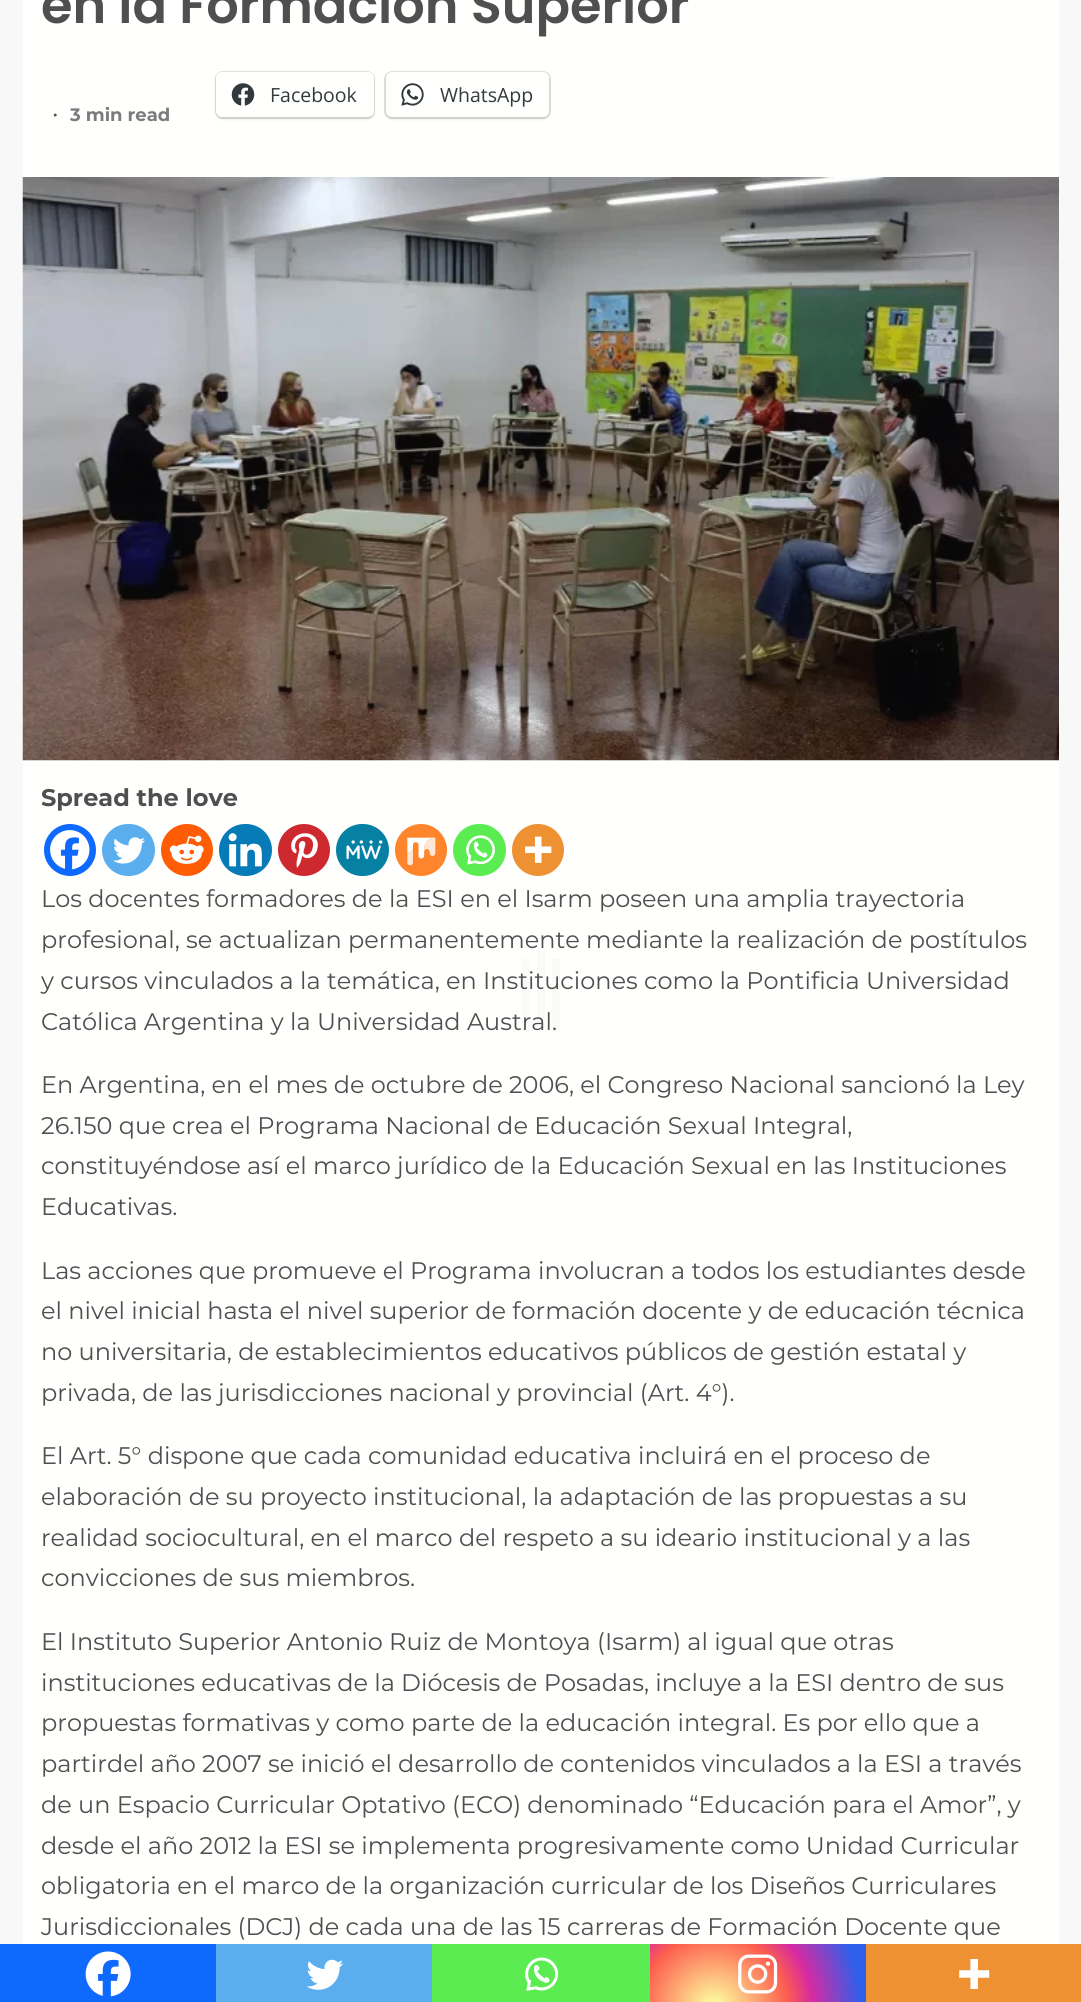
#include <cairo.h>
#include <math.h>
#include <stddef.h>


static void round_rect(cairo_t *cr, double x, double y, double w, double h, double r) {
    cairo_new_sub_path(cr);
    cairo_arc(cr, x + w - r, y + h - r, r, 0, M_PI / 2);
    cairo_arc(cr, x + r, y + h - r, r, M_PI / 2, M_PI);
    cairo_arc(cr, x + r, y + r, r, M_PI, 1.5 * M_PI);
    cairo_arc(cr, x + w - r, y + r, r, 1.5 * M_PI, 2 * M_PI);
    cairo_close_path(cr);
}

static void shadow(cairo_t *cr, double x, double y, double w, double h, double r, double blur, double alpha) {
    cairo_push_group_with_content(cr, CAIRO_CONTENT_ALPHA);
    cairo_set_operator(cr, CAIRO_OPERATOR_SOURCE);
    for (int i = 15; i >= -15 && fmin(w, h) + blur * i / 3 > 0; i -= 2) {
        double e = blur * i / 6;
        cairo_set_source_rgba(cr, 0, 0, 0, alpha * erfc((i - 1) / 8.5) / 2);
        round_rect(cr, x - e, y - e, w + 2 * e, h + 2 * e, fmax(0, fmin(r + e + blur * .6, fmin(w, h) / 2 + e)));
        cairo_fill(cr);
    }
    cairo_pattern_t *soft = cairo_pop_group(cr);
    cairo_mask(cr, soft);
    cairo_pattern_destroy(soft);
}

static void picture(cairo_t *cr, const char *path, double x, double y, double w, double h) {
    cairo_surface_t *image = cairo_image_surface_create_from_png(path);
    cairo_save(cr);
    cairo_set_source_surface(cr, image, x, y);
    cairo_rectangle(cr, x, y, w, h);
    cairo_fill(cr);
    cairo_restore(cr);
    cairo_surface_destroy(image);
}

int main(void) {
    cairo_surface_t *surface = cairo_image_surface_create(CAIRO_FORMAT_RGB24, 1081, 2002);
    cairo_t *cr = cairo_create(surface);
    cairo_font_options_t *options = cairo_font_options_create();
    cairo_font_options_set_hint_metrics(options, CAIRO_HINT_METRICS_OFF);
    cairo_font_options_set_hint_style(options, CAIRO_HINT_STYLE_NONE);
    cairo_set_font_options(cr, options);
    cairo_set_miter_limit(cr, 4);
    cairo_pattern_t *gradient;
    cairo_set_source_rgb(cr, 0.969, 0.969, 0.969);
    cairo_paint(cr);
    cairo_set_source_rgb(cr, 1, 1, 0.996);
    cairo_rectangle(cr, 23, 0, 1036, 177);
    cairo_fill(cr);
    cairo_select_font_face(cr, "Poppins SemiBold", CAIRO_FONT_SLANT_NORMAL, CAIRO_FONT_WEIGHT_NORMAL);
    cairo_set_font_size(cr, 51);
    cairo_set_source_rgb(cr, 0.31, 0.31, 0.31);
    cairo_move_to(cr, 41, 23);
    cairo_show_text(cr, "en la Formación Superior");
    round_rect(cr, 216, 72, 158, 46, 7);
    cairo_set_source_rgb(cr, 0.882, 0.882, 0.878);
    cairo_stroke(cr);
    cairo_set_source_rgb(cr, 0.027, 0.027, 0.027);
    shadow(cr, 216, 74, 158, 45, 6, 1.5, 0.12);
    cairo_set_source_rgb(cr, 1, 1, 0.996);
    round_rect(cr, 216, 72, 158, 45, 6);
    cairo_fill(cr);
    picture(cr, "img1.png", 231, 83, 24, 23);
    cairo_select_font_face(cr, "Open Sans", CAIRO_FONT_SLANT_NORMAL, CAIRO_FONT_WEIGHT_NORMAL);
    cairo_set_font_size(cr, 19.5);
    cairo_set_source_rgb(cr, 0.196, 0.224, 0.239);
    cairo_move_to(cr, 270, 102);
    cairo_show_text(cr, "Facebook");
    round_rect(cr, 385, 72, 165, 46, 7);
    cairo_set_source_rgb(cr, 0.882, 0.882, 0.878);
    cairo_stroke(cr);
    cairo_set_source_rgb(cr, 0.027, 0.027, 0.027);
    shadow(cr, 386, 74, 163, 45, 6, 1.5, 0.12);
    cairo_set_source_rgb(cr, 1, 1, 0.996);
    round_rect(cr, 386, 72, 163, 45, 6);
    cairo_fill(cr);
    picture(cr, "img2.png", 401, 83, 23, 23);
    cairo_set_source_rgb(cr, 0.196, 0.224, 0.239);
    cairo_move_to(cr, 440, 102);
    cairo_show_text(cr, "WhatsApp");
    cairo_select_font_face(cr, "Liberation Serif", CAIRO_FONT_SLANT_NORMAL, CAIRO_FONT_WEIGHT_BOLD);
    cairo_set_font_size(cr, 18);
    cairo_set_source_rgb(cr, 0.31, 0.31, 0.31);
    cairo_move_to(cr, 53, 121);
    cairo_show_text(cr, "∙");
    cairo_select_font_face(cr, "Montserrat", CAIRO_FONT_SLANT_NORMAL, CAIRO_FONT_WEIGHT_BOLD);
    cairo_set_source_rgb(cr, 0.482, 0.482, 0.482);
    cairo_move_to(cr, 70, 121);
    cairo_show_text(cr, "3 min read");
    picture(cr, "img3.png", 22, 177, 1037, 584);
    cairo_set_source_rgb(cr, 1, 1, 0.996);
    cairo_rectangle(cr, 23, 761, 1036, 1183);
    cairo_fill(cr);
    cairo_set_font_size(cr, 24);
    cairo_set_source_rgb(cr, 0.31, 0.31, 0.31);
    cairo_move_to(cr, 41, 806);
    cairo_show_text(cr, "Spread the love");
    cairo_set_source_rgb(cr, 0.055, 0.412, 0.996);
    cairo_new_path(cr);
    cairo_arc(cr, 70, 850, 26, 0, 2 * M_PI);
    cairo_fill(cr);
    picture(cr, "img4.png", 50, 830, 40, 40);
    cairo_set_source_rgb(cr, 0.353, 0.682, 0.933);
    round_rect(cr, 102, 824, 53, 52, 26);
    cairo_fill(cr);
    picture(cr, "img5.png", 113, 837, 32, 27);
    cairo_set_source_rgb(cr, 1, 0.361, 0.027);
    cairo_arc(cr, 187, 850, 26, 0, 2 * M_PI);
    cairo_fill(cr);
    picture(cr, "img6.png", 169, 835, 35, 29);
    cairo_set_source_rgb(cr, 0.027, 0.482, 0.718);
    round_rect(cr, 219, 824, 53, 52, 26);
    cairo_fill(cr);
    picture(cr, "img7.png", 228, 833, 34, 34);
    cairo_set_source_rgb(cr, 0.804, 0.161, 0.184);
    cairo_arc(cr, 304, 850, 26, 0, 2 * M_PI);
    cairo_fill(cr);
    picture(cr, "img8.png", 291, 833, 27, 35);
    cairo_set_source_rgb(cr, 0.027, 0.506, 0.639);
    round_rect(cr, 336, 824, 53, 52, 26);
    cairo_fill(cr);
    picture(cr, "img9.png", 346, 840, 37, 20);
    cairo_set_source_rgb(cr, 1, 0.522, 0.173);
    cairo_arc(cr, 421, 850, 26, 0, 2 * M_PI);
    cairo_fill(cr);
    picture(cr, "img10.png", 407, 837, 29, 29);
    cairo_set_source_rgb(cr, 0.353, 0.922, 0.318);
    round_rect(cr, 453, 824, 53, 52, 26);
    cairo_fill(cr);
    picture(cr, "img11.png", 466, 835, 29, 30);
    cairo_set_source_rgb(cr, 0.933, 0.569, 0.2);
    cairo_arc(cr, 538, 850, 26, 0, 2 * M_PI);
    cairo_fill(cr);
    picture(cr, "img12.png", 525, 836, 27, 27);
    cairo_select_font_face(cr, "Montserrat", CAIRO_FONT_SLANT_NORMAL, CAIRO_FONT_WEIGHT_NORMAL);
    cairo_set_source_rgb(cr, 0.31, 0.31, 0.31);
    cairo_move_to(cr, 41, 907);
    cairo_show_text(cr, "Los docentes formadores de la ESI en el Isarm poseen una amplia trayectoria");
    cairo_move_to(cr, 41, 948);
    cairo_show_text(cr, "profesional, se actualizan permanentemente mediante la realización de postítulos");
    cairo_move_to(cr, 41, 989);
    cairo_show_text(cr, "y cursos vinculados a la temática, en Instituciones como la Pontificia Universidad");
    cairo_move_to(cr, 41, 1030);
    cairo_show_text(cr, "Católica Argentina y la Universidad Austral.");
    cairo_move_to(cr, 41, 1093);
    cairo_show_text(cr, "En Argentina, en el mes de octubre de 2006, el Congreso Nacional sancionó la Ley");
    cairo_move_to(cr, 41, 1134);
    cairo_show_text(cr, "26.150 que crea el Programa Nacional de Educación Sexual Integral,");
    cairo_move_to(cr, 41, 1174);
    cairo_show_text(cr, "constituyéndose así el marco jurídico de la Educación Sexual en las Instituciones");
    cairo_move_to(cr, 41, 1215);
    cairo_show_text(cr, "Educativas.");
    cairo_move_to(cr, 41, 1279);
    cairo_show_text(cr, "Las acciones que promueve el Programa involucran a todos los estudiantes desde");
    cairo_move_to(cr, 41, 1319);
    cairo_show_text(cr, "el nivel inicial hasta el nivel superior de formación docente y de educación técnica");
    cairo_move_to(cr, 41, 1360);
    cairo_show_text(cr, "no universitaria, de establecimientos educativos públicos de gestión estatal y");
    cairo_move_to(cr, 41, 1401);
    cairo_show_text(cr, "privada, de las jurisdicciones nacional y provincial (Art. 4°).");
    cairo_move_to(cr, 41, 1464);
    cairo_show_text(cr, "El Art. 5° dispone que cada comunidad educativa incluirá en el proceso de");
    cairo_move_to(cr, 41, 1505);
    cairo_show_text(cr, "elaboración de su proyecto institucional, la adaptación de las propuestas a su");
    cairo_move_to(cr, 41, 1546);
    cairo_show_text(cr, "realidad sociocultural, en el marco del respeto a su ideario institucional y a las");
    cairo_move_to(cr, 41, 1586);
    cairo_show_text(cr, "convicciones de sus miembros.");
    cairo_move_to(cr, 41, 1650);
    cairo_show_text(cr, "El Instituto Superior Antonio Ruiz de Montoya (Isarm) al igual que otras");
    cairo_move_to(cr, 41, 1691);
    cairo_show_text(cr, "instituciones educativas de la Diócesis de Posadas, incluye a la ESI dentro de sus");
    cairo_move_to(cr, 41, 1731);
    cairo_show_text(cr, "propuestas formativas y como parte de la educación integral. Es por ello que a");
    cairo_move_to(cr, 41, 1772);
    cairo_show_text(cr, "partirdel año 2007 se inició el desarrollo de contenidos vinculados a la ESI a través");
    cairo_move_to(cr, 41, 1813);
    cairo_show_text(cr, "de un Espacio Curricular Optativo (ECO) denominado “Educación para el Amor”, y");
    cairo_move_to(cr, 41, 1854);
    cairo_show_text(cr, "desde el año 2012 la ESI se implementa progresivamente como Unidad Curricular");
    cairo_move_to(cr, 41, 1894);
    cairo_show_text(cr, "obligatoria en el marco de la organización curricular de los Diseños Curriculares");
    cairo_move_to(cr, 41, 1935);
    cairo_show_text(cr, "Jurisdiccionales (DCJ) de cada una de las 15 carreras de Formación Docente que");
    cairo_set_source_rgb(cr, 0.055, 0.412, 0.996);
    cairo_rectangle(cr, 0, 1944, 216, 58);
    cairo_fill(cr);
    picture(cr, "img13.png", 85, 1951, 46, 46);
    cairo_set_source_rgb(cr, 0.353, 0.682, 0.933);
    cairo_rectangle(cr, 216, 1944, 216, 58);
    cairo_fill(cr);
    picture(cr, "img14.png", 306, 1959, 38, 31);
    cairo_set_source_rgb(cr, 0.353, 0.922, 0.318);
    cairo_rectangle(cr, 432, 1944, 218, 58);
    cairo_fill(cr);
    picture(cr, "img15.png", 525, 1957, 34, 34);
    gradient = cairo_pattern_create_radial(714, 2008, 0, 714, 2008, 164);
    cairo_pattern_add_color_stop_rgba(gradient, 0, 0.992, 0.957, 0.604, 1);
    cairo_pattern_add_color_stop_rgba(gradient, 0.05, 0.992, 0.957, 0.604, 1);
    cairo_pattern_add_color_stop_rgba(gradient, 0.45, 0.992, 0.369, 0.306, 1);
    cairo_pattern_add_color_stop_rgba(gradient, 0.6, 0.843, 0.165, 0.631, 1);
    cairo_pattern_add_color_stop_rgba(gradient, 0.9, 0.18, 0.373, 0.922, 1);
    cairo_set_source(cr, gradient);
    cairo_pattern_destroy(gradient);
    cairo_rectangle(cr, 650, 1944, 216, 58);
    cairo_fill(cr);
    picture(cr, "img16.png", 738, 1954, 40, 40);
    cairo_set_source_rgb(cr, 0.933, 0.569, 0.2);
    cairo_rectangle(cr, 866, 1944, 215, 58);
    cairo_fill(cr);
    picture(cr, "img17.png", 959, 1959, 31, 30);
    cairo_set_source_rgba(cr, 0.29, 0.29, 0.29, 0.03);
    cairo_rectangle(cr, 537, 951, 8, 74);
    cairo_fill(cr);
    cairo_rectangle(cr, 522, 959, 8, 73);
    cairo_fill(cr);
    cairo_rectangle(cr, 552, 959, 8, 73);
    cairo_fill(cr);
    cairo_surface_write_to_png(surface, "page.png");
    cairo_font_options_destroy(options);
    cairo_destroy(cr);
    cairo_surface_destroy(surface);
    return 0;
}
